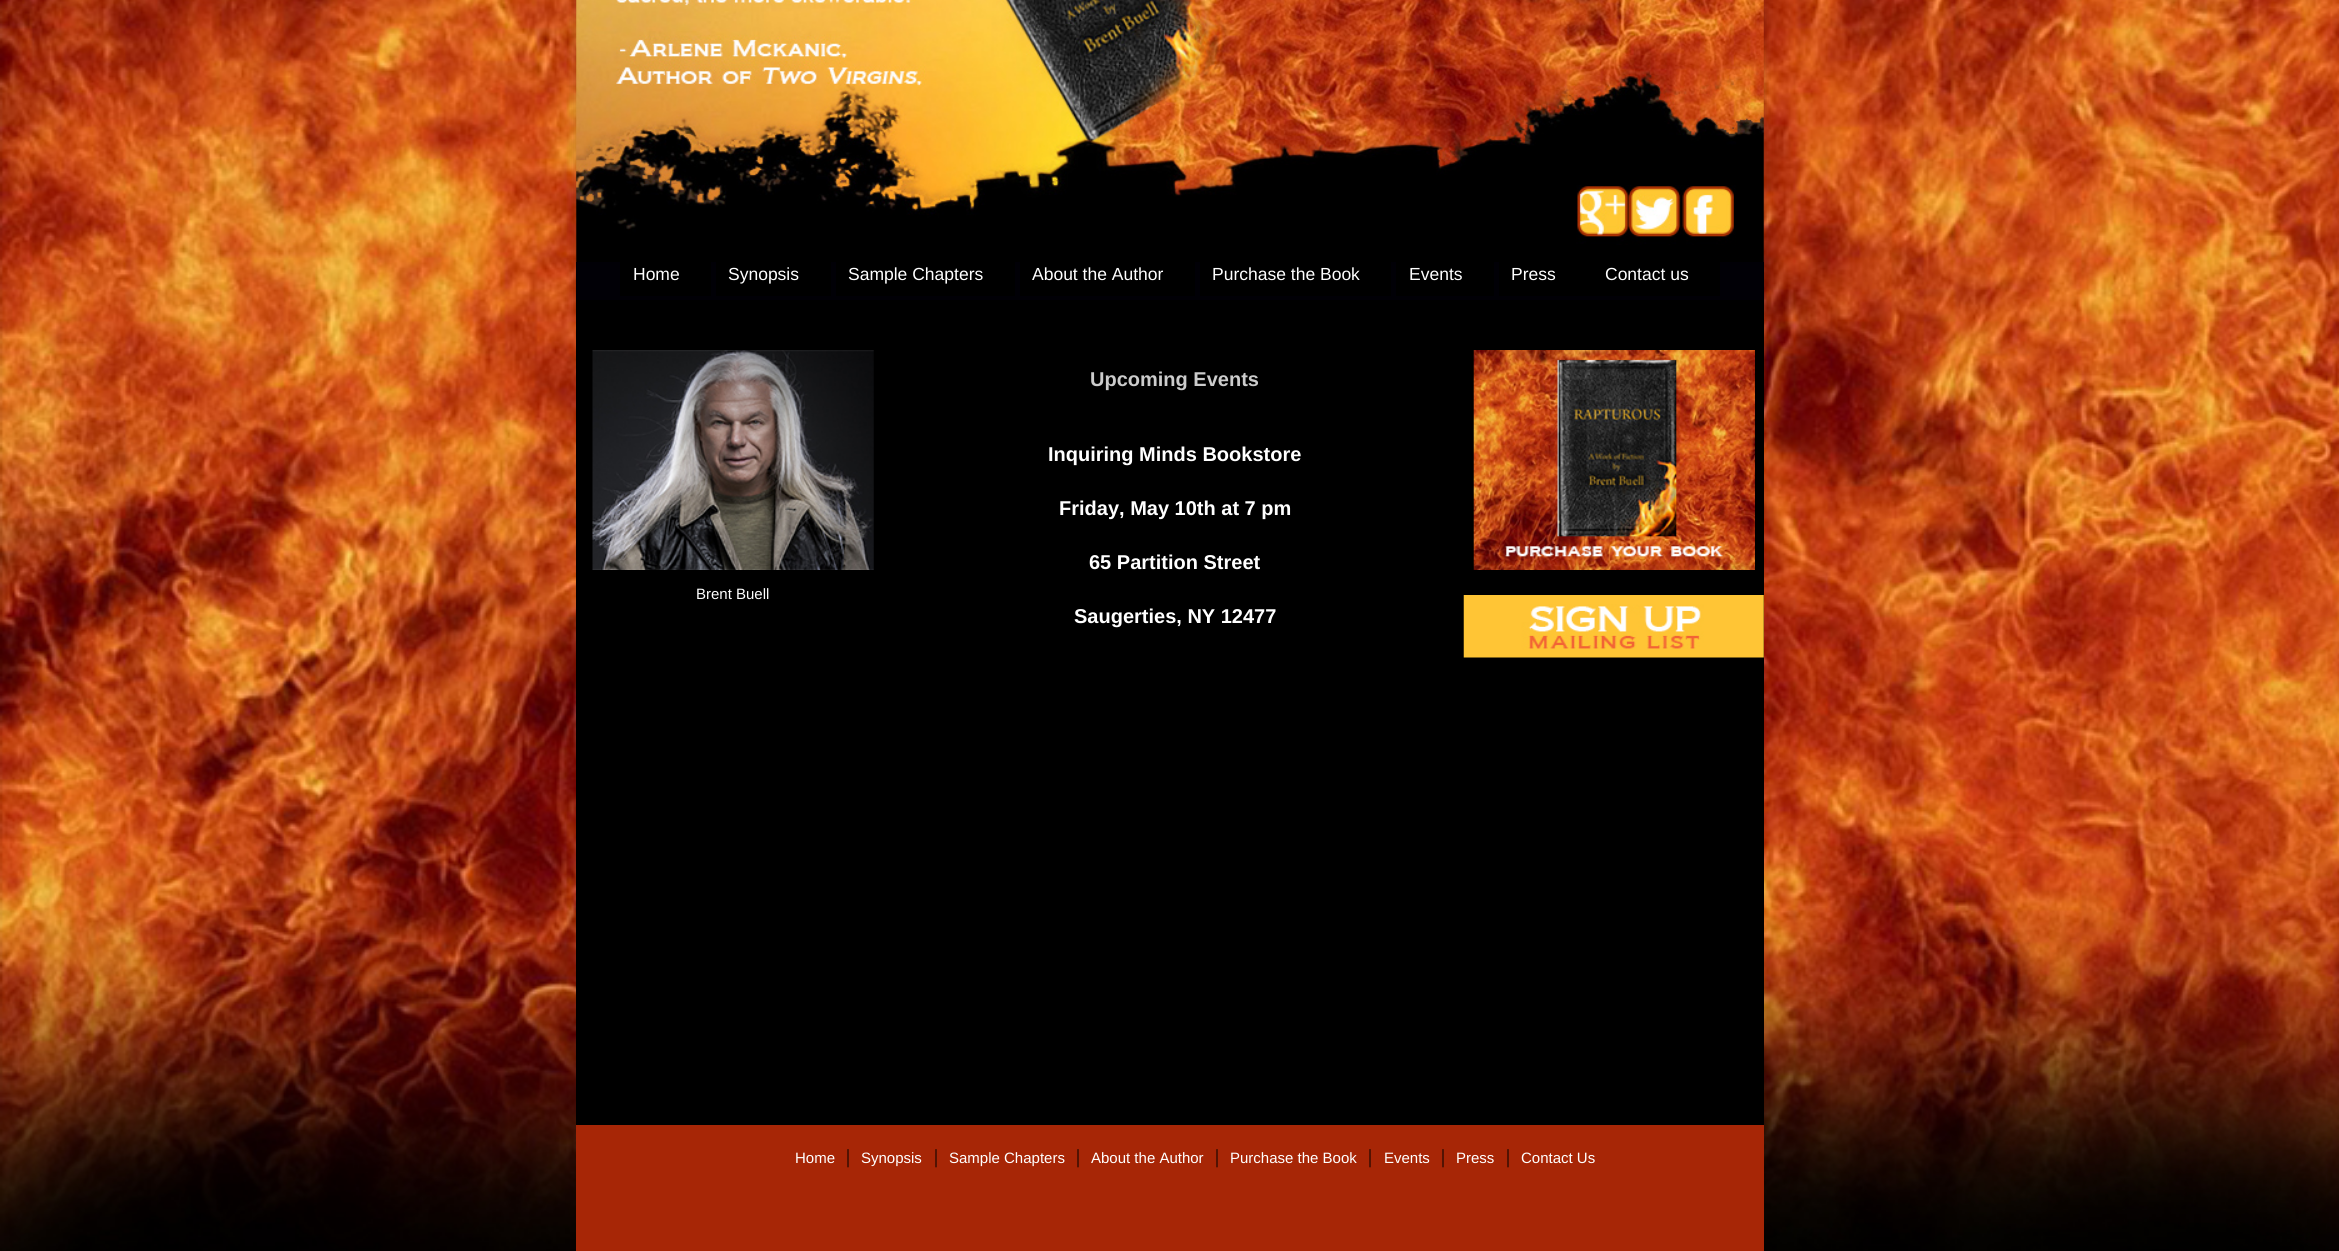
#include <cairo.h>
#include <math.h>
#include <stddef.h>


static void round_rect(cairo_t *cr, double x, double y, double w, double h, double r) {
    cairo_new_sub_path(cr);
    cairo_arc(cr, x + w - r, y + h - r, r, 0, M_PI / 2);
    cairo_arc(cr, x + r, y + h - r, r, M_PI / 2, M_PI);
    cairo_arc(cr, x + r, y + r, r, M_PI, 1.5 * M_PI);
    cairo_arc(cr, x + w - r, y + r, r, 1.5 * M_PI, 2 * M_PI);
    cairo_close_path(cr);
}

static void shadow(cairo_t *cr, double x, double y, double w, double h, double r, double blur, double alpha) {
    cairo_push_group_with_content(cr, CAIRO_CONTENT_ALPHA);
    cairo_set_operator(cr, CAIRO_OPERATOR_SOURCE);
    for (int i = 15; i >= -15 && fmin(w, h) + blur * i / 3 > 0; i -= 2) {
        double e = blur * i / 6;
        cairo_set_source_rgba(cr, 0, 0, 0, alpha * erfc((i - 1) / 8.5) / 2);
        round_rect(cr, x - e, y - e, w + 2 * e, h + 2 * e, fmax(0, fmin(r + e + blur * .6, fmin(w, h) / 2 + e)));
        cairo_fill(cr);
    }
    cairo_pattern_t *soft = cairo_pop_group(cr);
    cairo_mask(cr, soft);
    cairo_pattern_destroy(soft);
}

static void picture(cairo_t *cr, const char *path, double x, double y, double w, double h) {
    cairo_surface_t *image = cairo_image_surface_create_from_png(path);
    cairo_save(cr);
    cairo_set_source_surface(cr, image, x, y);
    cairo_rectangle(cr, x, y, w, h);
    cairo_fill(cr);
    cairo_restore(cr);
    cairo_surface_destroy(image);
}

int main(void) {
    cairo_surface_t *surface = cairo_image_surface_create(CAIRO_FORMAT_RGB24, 2339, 1251);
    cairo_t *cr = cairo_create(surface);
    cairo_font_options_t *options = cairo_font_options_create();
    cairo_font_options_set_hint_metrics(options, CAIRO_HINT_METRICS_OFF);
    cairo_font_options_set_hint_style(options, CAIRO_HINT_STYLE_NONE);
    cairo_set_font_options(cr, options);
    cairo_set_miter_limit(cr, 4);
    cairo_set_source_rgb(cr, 1, 1, 1);
    cairo_paint(cr);
    picture(cr, "img1.png", 0, 0, 2339, 1251);
    cairo_set_source_rgb(cr, 0, 0, 0);
    shadow(cr, 576, -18, 1188, 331, 0, 6, 0.2);
    picture(cr, "img2.png", 576, 0, 1188, 262);
    cairo_set_source_rgb(cr, 0.004, 0, 0.024);
    cairo_rectangle(cr, 576, 262, 1188, 38);
    cairo_fill(cr);
    cairo_set_source_rgb(cr, 0, 0, 0);
    cairo_rectangle(cr, 620, 262, 91, 34);
    cairo_fill(cr);
    cairo_select_font_face(cr, "Liberation Sans", CAIRO_FONT_SLANT_NORMAL, CAIRO_FONT_WEIGHT_NORMAL);
    cairo_set_font_size(cr, 17.5);
    cairo_set_source_rgb(cr, 1, 1, 1);
    cairo_move_to(cr, 633, 280);
    cairo_show_text(cr, "Home");
    cairo_set_source_rgb(cr, 0, 0, 0);
    cairo_rectangle(cr, 716, 262, 115, 34);
    cairo_fill(cr);
    cairo_set_source_rgb(cr, 1, 1, 1);
    cairo_move_to(cr, 728, 280);
    cairo_show_text(cr, "Synopsis");
    cairo_set_source_rgb(cr, 0, 0, 0);
    cairo_rectangle(cr, 836, 262, 179, 34);
    cairo_fill(cr);
    cairo_set_source_rgb(cr, 1, 1, 1);
    cairo_move_to(cr, 848, 280);
    cairo_show_text(cr, "Sample Chapters");
    cairo_set_source_rgb(cr, 0, 0, 0);
    cairo_rectangle(cr, 1020, 262, 175, 34);
    cairo_fill(cr);
    cairo_set_source_rgb(cr, 1, 1, 1);
    cairo_move_to(cr, 1032, 280);
    cairo_show_text(cr, "About the Author");
    cairo_set_source_rgb(cr, 0, 0, 0);
    cairo_rectangle(cr, 1200, 262, 191, 34);
    cairo_fill(cr);
    cairo_set_source_rgb(cr, 1, 1, 1);
    cairo_move_to(cr, 1212, 280);
    cairo_show_text(cr, "Purchase the Book");
    cairo_set_source_rgb(cr, 0, 0, 0);
    cairo_rectangle(cr, 1396, 262, 98, 34);
    cairo_fill(cr);
    cairo_set_source_rgb(cr, 1, 1, 1);
    cairo_move_to(cr, 1409, 280);
    cairo_show_text(cr, "Events");
    cairo_set_source_rgb(cr, 0, 0, 0);
    cairo_rectangle(cr, 1499, 262, 221, 34);
    cairo_fill(cr);
    cairo_set_source_rgb(cr, 1, 1, 1);
    cairo_move_to(cr, 1511, 280);
    cairo_show_text(cr, "Press");
    cairo_move_to(cr, 1605, 280);
    cairo_show_text(cr, "Contact us");
    cairo_set_source_rgb(cr, 0, 0, 0);
    cairo_rectangle(cr, 576, 300, 1188, 825);
    cairo_fill(cr);
    picture(cr, "img3.png", 592, 350, 282, 220);
    cairo_set_font_size(cr, 15);
    cairo_set_source_rgb(cr, 1, 1, 1);
    cairo_move_to(cr, 696, 599);
    cairo_show_text(cr, "Brent Buell");
    cairo_select_font_face(cr, "Liberation Sans", CAIRO_FONT_SLANT_NORMAL, CAIRO_FONT_WEIGHT_BOLD);
    cairo_set_font_size(cr, 20);
    cairo_set_source_rgb(cr, 0.8, 0.8, 0.8);
    cairo_move_to(cr, 1090, 386);
    cairo_show_text(cr, "Upcoming Events");
    cairo_set_source_rgb(cr, 1, 1, 1);
    cairo_move_to(cr, 1048, 461);
    cairo_show_text(cr, "Inquiring Minds Bookstore");
    cairo_move_to(cr, 1059, 515);
    cairo_show_text(cr, "Friday, May 10th at 7 pm");
    cairo_move_to(cr, 1089, 569);
    cairo_show_text(cr, "65 Partition Street");
    cairo_move_to(cr, 1074, 623);
    cairo_show_text(cr, "Saugerties, NY 12477");
    picture(cr, "img4.png", 1473, 350, 282, 220);
    picture(cr, "img5.png", 1463, 595, 301, 63);
    cairo_set_source_rgb(cr, 0.655, 0.149, 0.024);
    cairo_rectangle(cr, 576, 1125, 1188, 126);
    cairo_fill(cr);
    cairo_select_font_face(cr, "Liberation Sans", CAIRO_FONT_SLANT_NORMAL, CAIRO_FONT_WEIGHT_NORMAL);
    cairo_set_font_size(cr, 15);
    cairo_set_source_rgb(cr, 1, 1, 1);
    cairo_move_to(cr, 795, 1163);
    cairo_show_text(cr, "Home");
    cairo_select_font_face(cr, "Liberation Serif", CAIRO_FONT_SLANT_NORMAL, CAIRO_FONT_WEIGHT_NORMAL);
    cairo_set_font_size(cr, 20);
    cairo_set_source_rgb(cr, 0, 0, 0);
    cairo_move_to(cr, 846, 1163);
    cairo_show_text(cr, "|");
    cairo_select_font_face(cr, "Liberation Sans", CAIRO_FONT_SLANT_NORMAL, CAIRO_FONT_WEIGHT_NORMAL);
    cairo_set_font_size(cr, 15);
    cairo_set_source_rgb(cr, 1, 1, 1);
    cairo_move_to(cr, 861, 1163);
    cairo_show_text(cr, "Synopsis");
    cairo_select_font_face(cr, "Liberation Serif", CAIRO_FONT_SLANT_NORMAL, CAIRO_FONT_WEIGHT_NORMAL);
    cairo_set_font_size(cr, 20);
    cairo_set_source_rgb(cr, 0, 0, 0);
    cairo_move_to(cr, 934, 1163);
    cairo_show_text(cr, "|");
    cairo_select_font_face(cr, "Liberation Sans", CAIRO_FONT_SLANT_NORMAL, CAIRO_FONT_WEIGHT_NORMAL);
    cairo_set_font_size(cr, 15);
    cairo_set_source_rgb(cr, 1, 1, 1);
    cairo_move_to(cr, 949, 1163);
    cairo_show_text(cr, "Sample Chapters");
    cairo_select_font_face(cr, "Liberation Serif", CAIRO_FONT_SLANT_NORMAL, CAIRO_FONT_WEIGHT_NORMAL);
    cairo_set_font_size(cr, 20);
    cairo_set_source_rgb(cr, 0, 0, 0);
    cairo_move_to(cr, 1076, 1163);
    cairo_show_text(cr, "|");
    cairo_select_font_face(cr, "Liberation Sans", CAIRO_FONT_SLANT_NORMAL, CAIRO_FONT_WEIGHT_NORMAL);
    cairo_set_font_size(cr, 15);
    cairo_set_source_rgb(cr, 1, 1, 1);
    cairo_move_to(cr, 1091, 1163);
    cairo_show_text(cr, "About the Author");
    cairo_select_font_face(cr, "Liberation Serif", CAIRO_FONT_SLANT_NORMAL, CAIRO_FONT_WEIGHT_NORMAL);
    cairo_set_font_size(cr, 20);
    cairo_set_source_rgb(cr, 0, 0, 0);
    cairo_move_to(cr, 1215, 1163);
    cairo_show_text(cr, "|");
    cairo_select_font_face(cr, "Liberation Sans", CAIRO_FONT_SLANT_NORMAL, CAIRO_FONT_WEIGHT_NORMAL);
    cairo_set_font_size(cr, 15);
    cairo_set_source_rgb(cr, 1, 1, 1);
    cairo_move_to(cr, 1230, 1163);
    cairo_show_text(cr, "Purchase the Book");
    cairo_select_font_face(cr, "Liberation Serif", CAIRO_FONT_SLANT_NORMAL, CAIRO_FONT_WEIGHT_NORMAL);
    cairo_set_font_size(cr, 20);
    cairo_set_source_rgb(cr, 0, 0, 0);
    cairo_move_to(cr, 1368, 1163);
    cairo_show_text(cr, "|");
    cairo_select_font_face(cr, "Liberation Sans", CAIRO_FONT_SLANT_NORMAL, CAIRO_FONT_WEIGHT_NORMAL);
    cairo_set_font_size(cr, 15);
    cairo_set_source_rgb(cr, 1, 1, 1);
    cairo_move_to(cr, 1384, 1163);
    cairo_show_text(cr, "Events");
    cairo_select_font_face(cr, "Liberation Serif", CAIRO_FONT_SLANT_NORMAL, CAIRO_FONT_WEIGHT_NORMAL);
    cairo_set_font_size(cr, 20);
    cairo_set_source_rgb(cr, 0, 0, 0);
    cairo_move_to(cr, 1441, 1163);
    cairo_show_text(cr, "|");
    cairo_select_font_face(cr, "Liberation Sans", CAIRO_FONT_SLANT_NORMAL, CAIRO_FONT_WEIGHT_NORMAL);
    cairo_set_font_size(cr, 15);
    cairo_set_source_rgb(cr, 1, 1, 1);
    cairo_move_to(cr, 1456, 1163);
    cairo_show_text(cr, "Press");
    cairo_select_font_face(cr, "Liberation Serif", CAIRO_FONT_SLANT_NORMAL, CAIRO_FONT_WEIGHT_NORMAL);
    cairo_set_font_size(cr, 20);
    cairo_set_source_rgb(cr, 0, 0, 0);
    cairo_move_to(cr, 1506, 1163);
    cairo_show_text(cr, "|");
    cairo_select_font_face(cr, "Liberation Sans", CAIRO_FONT_SLANT_NORMAL, CAIRO_FONT_WEIGHT_NORMAL);
    cairo_set_font_size(cr, 15);
    cairo_set_source_rgb(cr, 1, 1, 1);
    cairo_move_to(cr, 1521, 1163);
    cairo_show_text(cr, "Contact Us");
    cairo_surface_write_to_png(surface, "page.png");
    cairo_font_options_destroy(options);
    cairo_destroy(cr);
    cairo_surface_destroy(surface);
    return 0;
}
